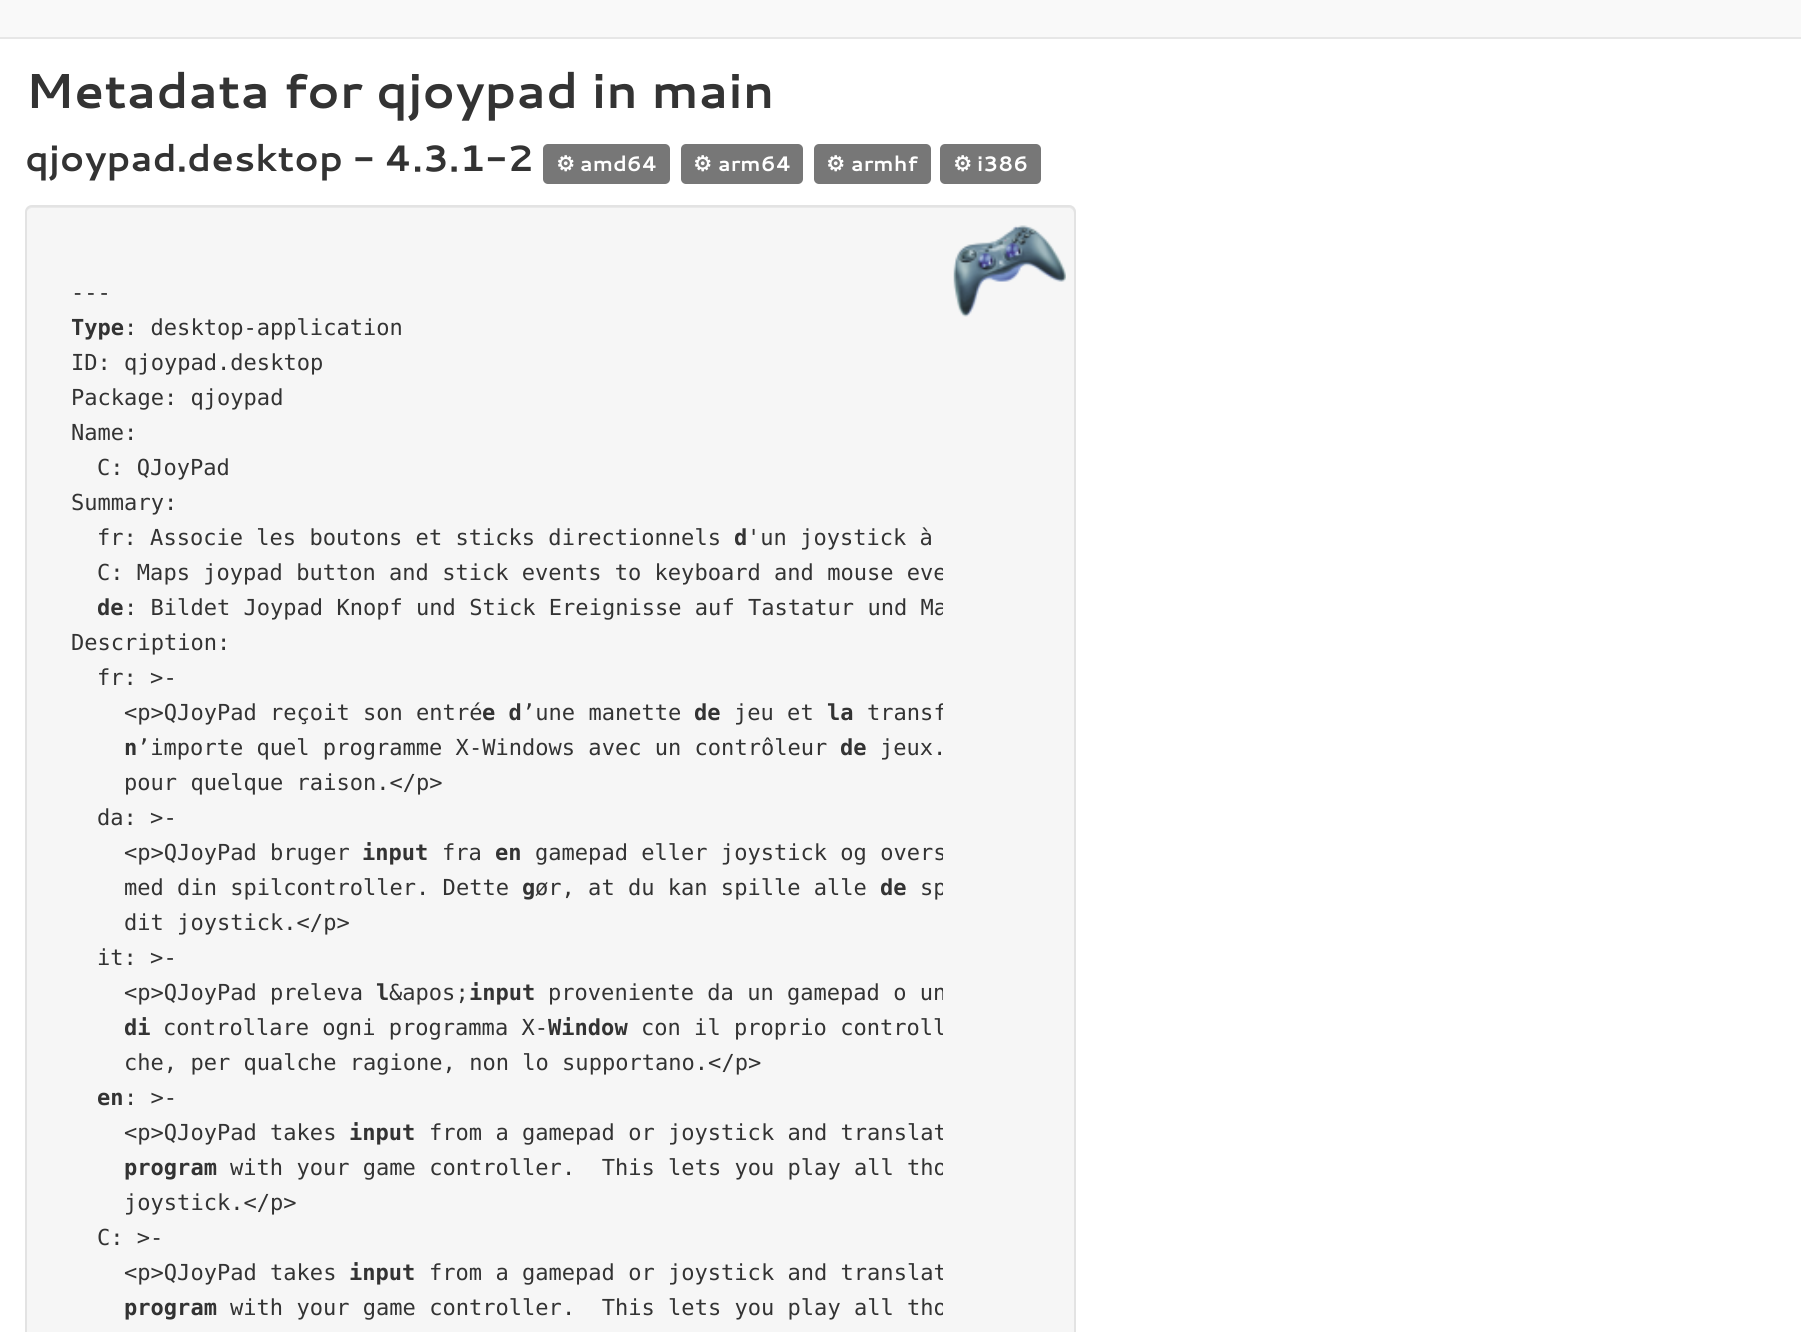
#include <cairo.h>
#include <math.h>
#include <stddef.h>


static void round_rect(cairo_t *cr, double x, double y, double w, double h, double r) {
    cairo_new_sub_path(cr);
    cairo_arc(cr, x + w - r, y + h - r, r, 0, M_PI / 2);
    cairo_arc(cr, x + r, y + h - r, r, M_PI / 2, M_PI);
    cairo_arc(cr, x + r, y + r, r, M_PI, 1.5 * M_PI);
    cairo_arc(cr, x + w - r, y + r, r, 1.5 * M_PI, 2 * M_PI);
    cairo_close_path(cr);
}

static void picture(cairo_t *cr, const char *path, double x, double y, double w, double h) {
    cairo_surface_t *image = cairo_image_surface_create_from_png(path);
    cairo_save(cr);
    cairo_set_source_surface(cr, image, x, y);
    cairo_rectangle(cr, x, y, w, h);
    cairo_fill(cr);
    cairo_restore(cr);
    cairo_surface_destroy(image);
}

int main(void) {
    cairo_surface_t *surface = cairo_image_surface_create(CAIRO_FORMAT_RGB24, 1801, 1332);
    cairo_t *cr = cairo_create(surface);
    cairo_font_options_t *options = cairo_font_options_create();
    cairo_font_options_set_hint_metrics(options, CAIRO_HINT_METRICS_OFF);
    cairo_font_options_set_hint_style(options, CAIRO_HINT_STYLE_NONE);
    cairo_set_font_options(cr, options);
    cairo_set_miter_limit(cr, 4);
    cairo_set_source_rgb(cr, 1, 1, 1);
    cairo_paint(cr);
    cairo_set_source_rgb(cr, 0.973, 0.973, 0.973);
    cairo_rectangle(cr, 0, 0, 1801, 37);
    cairo_fill(cr);
    cairo_set_source_rgb(cr, 0.906, 0.906, 0.906);
    cairo_rectangle(cr, 0, 37, 1801, 2);
    cairo_fill(cr);
    cairo_select_font_face(cr, "Cantarell", CAIRO_FONT_SLANT_NORMAL, CAIRO_FONT_WEIGHT_BOLD);
    cairo_set_font_size(cr, 49);
    cairo_set_source_rgb(cr, 0.2, 0.2, 0.2);
    cairo_move_to(cr, 25, 108);
    cairo_show_text(cr, "Metadata for qjoypad in main");
    cairo_set_font_size(cr, 36.75);
    cairo_move_to(cr, 25, 171);
    cairo_show_text(cr, "qjoypad.desktop - 4.3.1-2");
    cairo_set_source_rgb(cr, 0.467, 0.467, 0.467);
    round_rect(cr, 543, 144, 127, 40, 5);
    cairo_fill(cr);
    cairo_select_font_face(cr, "DejaVu Sans", CAIRO_FONT_SLANT_NORMAL, CAIRO_FONT_WEIGHT_BOLD);
    cairo_set_font_size(cr, 21);
    cairo_set_source_rgb(cr, 1, 1, 1);
    cairo_move_to(cr, 556, 171);
    cairo_show_text(cr, "⚙");
    cairo_select_font_face(cr, "Cantarell", CAIRO_FONT_SLANT_NORMAL, CAIRO_FONT_WEIGHT_BOLD);
    cairo_move_to(cr, 580, 171);
    cairo_show_text(cr, "amd64");
    cairo_set_source_rgb(cr, 0.467, 0.467, 0.467);
    round_rect(cr, 681, 144, 122, 40, 5);
    cairo_fill(cr);
    cairo_select_font_face(cr, "DejaVu Sans", CAIRO_FONT_SLANT_NORMAL, CAIRO_FONT_WEIGHT_BOLD);
    cairo_set_source_rgb(cr, 1, 1, 1);
    cairo_move_to(cr, 693, 171);
    cairo_show_text(cr, "⚙");
    cairo_select_font_face(cr, "Cantarell", CAIRO_FONT_SLANT_NORMAL, CAIRO_FONT_WEIGHT_BOLD);
    cairo_move_to(cr, 718, 171);
    cairo_show_text(cr, "arm64");
    cairo_set_source_rgb(cr, 0.467, 0.467, 0.467);
    round_rect(cr, 814, 144, 117, 40, 5);
    cairo_fill(cr);
    cairo_select_font_face(cr, "DejaVu Sans", CAIRO_FONT_SLANT_NORMAL, CAIRO_FONT_WEIGHT_BOLD);
    cairo_set_source_rgb(cr, 1, 1, 1);
    cairo_move_to(cr, 826, 171);
    cairo_show_text(cr, "⚙");
    cairo_select_font_face(cr, "Cantarell", CAIRO_FONT_SLANT_NORMAL, CAIRO_FONT_WEIGHT_BOLD);
    cairo_move_to(cr, 851, 171);
    cairo_show_text(cr, "armhf");
    cairo_set_source_rgb(cr, 0.467, 0.467, 0.467);
    round_rect(cr, 940, 144, 101, 40, 5);
    cairo_fill(cr);
    cairo_select_font_face(cr, "DejaVu Sans", CAIRO_FONT_SLANT_NORMAL, CAIRO_FONT_WEIGHT_BOLD);
    cairo_set_source_rgb(cr, 1, 1, 1);
    cairo_move_to(cr, 953, 171);
    cairo_show_text(cr, "⚙");
    cairo_select_font_face(cr, "Cantarell", CAIRO_FONT_SLANT_NORMAL, CAIRO_FONT_WEIGHT_BOLD);
    cairo_move_to(cr, 977, 171);
    cairo_show_text(cr, "i386");
    cairo_set_source_rgb(cr, 0.961, 0.961, 0.961);
    round_rect(cr, 25, 205, 1051, 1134, 7);
    cairo_fill(cr);
    cairo_set_source_rgb(cr, 0.914, 0.914, 0.914);
    cairo_new_path(cr);
    cairo_move_to(cr, 32, 208);
    cairo_line_to(cr, 1069, 208);
    cairo_curve_to(cr, 1072, 208, 1074, 211, 1074, 214);
    cairo_line_to(cr, 1074, 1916);
    cairo_line_to(cr, 1074, 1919);
    cairo_curve_to(cr, 1074, 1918, 1075, 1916, 1075, 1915);
    cairo_line_to(cr, 1075, 212);
    cairo_curve_to(cr, 1075, 209, 1073, 207, 1070, 207);
    cairo_line_to(cr, 31, 207);
    cairo_curve_to(cr, 28, 207, 26, 209, 26, 212);
    cairo_line_to(cr, 26, 214);
    cairo_curve_to(cr, 26, 211, 29, 208, 32, 208);
    cairo_close_path(cr);
    cairo_fill(cr);
    round_rect(cr, 26, 206, 1049, 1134, 6);
    cairo_set_source_rgb(cr, 0.89, 0.89, 0.89);
    cairo_stroke(cr);
    picture(cr, "img1.png", 953, 225, 113, 92);
    cairo_select_font_face(cr, "DejaVu Sans Mono", CAIRO_FONT_SLANT_NORMAL, CAIRO_FONT_WEIGHT_NORMAL);
    cairo_set_font_size(cr, 22.05);
    cairo_set_source_rgb(cr, 0.2, 0.2, 0.2);
    cairo_move_to(cr, 71, 300);
    cairo_show_text(cr, "---");
    cairo_select_font_face(cr, "DejaVu Sans Mono", CAIRO_FONT_SLANT_NORMAL, CAIRO_FONT_WEIGHT_BOLD);
    cairo_move_to(cr, 71, 335);
    cairo_show_text(cr, "Type");
    cairo_select_font_face(cr, "DejaVu Sans Mono", CAIRO_FONT_SLANT_NORMAL, CAIRO_FONT_WEIGHT_NORMAL);
    cairo_move_to(cr, 124, 335);
    cairo_show_text(cr, ": desktop-application");
    cairo_move_to(cr, 71, 370);
    cairo_show_text(cr, "ID: qjoypad.desktop");
    cairo_move_to(cr, 71, 405);
    cairo_show_text(cr, "Package: qjoypad");
    cairo_move_to(cr, 71, 440);
    cairo_show_text(cr, "Name:");
    cairo_move_to(cr, 97, 475);
    cairo_show_text(cr, "C: QJoyPad");
    cairo_move_to(cr, 71, 510);
    cairo_show_text(cr, "Summary:");
    cairo_move_to(cr, 97, 545);
    cairo_show_text(cr, "fr: Associe les boutons et sticks directionnels");
    cairo_select_font_face(cr, "DejaVu Sans Mono", CAIRO_FONT_SLANT_NORMAL, CAIRO_FONT_WEIGHT_BOLD);
    cairo_move_to(cr, 734, 545);
    cairo_show_text(cr, "d");
    cairo_select_font_face(cr, "DejaVu Sans Mono", CAIRO_FONT_SLANT_NORMAL, CAIRO_FONT_WEIGHT_NORMAL);
    cairo_move_to(cr, 747, 545);
    cairo_show_text(cr, "'un joystick à");
    cairo_save(cr);
    round_rect(cr, 60, 264, 883, 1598, 7);
    cairo_clip(cr);
    cairo_move_to(cr, 97, 580);
    cairo_show_text(cr, "C: Maps joypad button and stick events to keyboard and mouse eve");
    cairo_restore(cr);
    cairo_select_font_face(cr, "DejaVu Sans Mono", CAIRO_FONT_SLANT_NORMAL, CAIRO_FONT_WEIGHT_BOLD);
    cairo_move_to(cr, 97, 615);
    cairo_show_text(cr, "de");
    cairo_save(cr);
    round_rect(cr, 60, 264, 883, 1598, 7);
    cairo_clip(cr);
    cairo_select_font_face(cr, "DejaVu Sans Mono", CAIRO_FONT_SLANT_NORMAL, CAIRO_FONT_WEIGHT_NORMAL);
    cairo_move_to(cr, 124, 615);
    cairo_show_text(cr, ": Bildet Joypad Knopf und Stick Ereignisse auf Tastatur und Ma");
    cairo_restore(cr);
    cairo_select_font_face(cr, "DejaVu Sans Mono", CAIRO_FONT_SLANT_NORMAL, CAIRO_FONT_WEIGHT_NORMAL);
    cairo_move_to(cr, 71, 650);
    cairo_show_text(cr, "Description:");
    cairo_move_to(cr, 97, 685);
    cairo_show_text(cr, "fr: >-");
    cairo_move_to(cr, 124, 720);
    cairo_show_text(cr, "<p>QJoyPad reçoit son entré");
    cairo_select_font_face(cr, "DejaVu Sans Mono", CAIRO_FONT_SLANT_NORMAL, CAIRO_FONT_WEIGHT_BOLD);
    cairo_move_to(cr, 482, 720);
    cairo_show_text(cr, "e d");
    cairo_select_font_face(cr, "DejaVu Sans Mono", CAIRO_FONT_SLANT_NORMAL, CAIRO_FONT_WEIGHT_NORMAL);
    cairo_move_to(cr, 522, 720);
    cairo_show_text(cr, "’une manette");
    cairo_select_font_face(cr, "DejaVu Sans Mono", CAIRO_FONT_SLANT_NORMAL, CAIRO_FONT_WEIGHT_BOLD);
    cairo_move_to(cr, 694, 720);
    cairo_show_text(cr, "de");
    cairo_select_font_face(cr, "DejaVu Sans Mono", CAIRO_FONT_SLANT_NORMAL, CAIRO_FONT_WEIGHT_NORMAL);
    cairo_move_to(cr, 734, 720);
    cairo_show_text(cr, "jeu et");
    cairo_select_font_face(cr, "DejaVu Sans Mono", CAIRO_FONT_SLANT_NORMAL, CAIRO_FONT_WEIGHT_BOLD);
    cairo_move_to(cr, 827, 720);
    cairo_show_text(cr, "la");
    cairo_save(cr);
    round_rect(cr, 60, 264, 883, 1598, 7);
    cairo_clip(cr);
    cairo_select_font_face(cr, "DejaVu Sans Mono", CAIRO_FONT_SLANT_NORMAL, CAIRO_FONT_WEIGHT_NORMAL);
    cairo_move_to(cr, 867, 720);
    cairo_show_text(cr, "transf");
    cairo_restore(cr);
    cairo_move_to(cr, 124, 755);
    cairo_show_text(cr, "n");
    cairo_select_font_face(cr, "DejaVu Sans Mono", CAIRO_FONT_SLANT_NORMAL, CAIRO_FONT_WEIGHT_NORMAL);
    cairo_move_to(cr, 137, 755);
    cairo_show_text(cr, "’importe quel programme X-Windows avec un contrôleur");
    cairo_select_font_face(cr, "DejaVu Sans Mono", CAIRO_FONT_SLANT_NORMAL, CAIRO_FONT_WEIGHT_BOLD);
    cairo_move_to(cr, 840, 755);
    cairo_show_text(cr, "de");
    cairo_select_font_face(cr, "DejaVu Sans Mono", CAIRO_FONT_SLANT_NORMAL, CAIRO_FONT_WEIGHT_NORMAL);
    cairo_move_to(cr, 880, 755);
    cairo_show_text(cr, "jeux.");
    cairo_move_to(cr, 124, 790);
    cairo_show_text(cr, "pour quelque raison.</p>");
    cairo_move_to(cr, 97, 825);
    cairo_show_text(cr, "da: >-");
    cairo_move_to(cr, 124, 860);
    cairo_show_text(cr, "<p>QJoyPad bruger");
    cairo_select_font_face(cr, "DejaVu Sans Mono", CAIRO_FONT_SLANT_NORMAL, CAIRO_FONT_WEIGHT_BOLD);
    cairo_move_to(cr, 362, 860);
    cairo_show_text(cr, "input");
    cairo_select_font_face(cr, "DejaVu Sans Mono", CAIRO_FONT_SLANT_NORMAL, CAIRO_FONT_WEIGHT_NORMAL);
    cairo_move_to(cr, 442, 860);
    cairo_show_text(cr, "fra");
    cairo_select_font_face(cr, "DejaVu Sans Mono", CAIRO_FONT_SLANT_NORMAL, CAIRO_FONT_WEIGHT_BOLD);
    cairo_move_to(cr, 495, 860);
    cairo_show_text(cr, "en");
    cairo_save(cr);
    round_rect(cr, 60, 264, 883, 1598, 7);
    cairo_clip(cr);
    cairo_select_font_face(cr, "DejaVu Sans Mono", CAIRO_FONT_SLANT_NORMAL, CAIRO_FONT_WEIGHT_NORMAL);
    cairo_move_to(cr, 535, 860);
    cairo_show_text(cr, "gamepad eller joystick og overs");
    cairo_restore(cr);
    cairo_select_font_face(cr, "DejaVu Sans Mono", CAIRO_FONT_SLANT_NORMAL, CAIRO_FONT_WEIGHT_NORMAL);
    cairo_move_to(cr, 124, 895);
    cairo_show_text(cr, "med din spilcontroller. Dette");
    cairo_select_font_face(cr, "DejaVu Sans Mono", CAIRO_FONT_SLANT_NORMAL, CAIRO_FONT_WEIGHT_BOLD);
    cairo_move_to(cr, 522, 895);
    cairo_show_text(cr, "g");
    cairo_select_font_face(cr, "DejaVu Sans Mono", CAIRO_FONT_SLANT_NORMAL, CAIRO_FONT_WEIGHT_NORMAL);
    cairo_move_to(cr, 535, 895);
    cairo_show_text(cr, "ør, at du kan spille alle");
    cairo_select_font_face(cr, "DejaVu Sans Mono", CAIRO_FONT_SLANT_NORMAL, CAIRO_FONT_WEIGHT_BOLD);
    cairo_move_to(cr, 880, 895);
    cairo_show_text(cr, "de");
    cairo_save(cr);
    round_rect(cr, 60, 264, 883, 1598, 7);
    cairo_clip(cr);
    cairo_select_font_face(cr, "DejaVu Sans Mono", CAIRO_FONT_SLANT_NORMAL, CAIRO_FONT_WEIGHT_NORMAL);
    cairo_move_to(cr, 920, 895);
    cairo_show_text(cr, "sp");
    cairo_restore(cr);
    cairo_select_font_face(cr, "DejaVu Sans Mono", CAIRO_FONT_SLANT_NORMAL, CAIRO_FONT_WEIGHT_NORMAL);
    cairo_move_to(cr, 124, 930);
    cairo_show_text(cr, "dit joystick.</p>");
    cairo_move_to(cr, 97, 965);
    cairo_show_text(cr, "it: >-");
    cairo_move_to(cr, 124, 1000);
    cairo_show_text(cr, "<p>QJoyPad preleva");
    cairo_select_font_face(cr, "DejaVu Sans Mono", CAIRO_FONT_SLANT_NORMAL, CAIRO_FONT_WEIGHT_BOLD);
    cairo_move_to(cr, 376, 1000);
    cairo_show_text(cr, "l");
    cairo_select_font_face(cr, "DejaVu Sans Mono", CAIRO_FONT_SLANT_NORMAL, CAIRO_FONT_WEIGHT_NORMAL);
    cairo_move_to(cr, 389, 1000);
    cairo_show_text(cr, "&apos;");
    cairo_select_font_face(cr, "DejaVu Sans Mono", CAIRO_FONT_SLANT_NORMAL, CAIRO_FONT_WEIGHT_BOLD);
    cairo_move_to(cr, 469, 1000);
    cairo_show_text(cr, "input");
    cairo_save(cr);
    round_rect(cr, 60, 264, 883, 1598, 7);
    cairo_clip(cr);
    cairo_select_font_face(cr, "DejaVu Sans Mono", CAIRO_FONT_SLANT_NORMAL, CAIRO_FONT_WEIGHT_NORMAL);
    cairo_move_to(cr, 548, 1000);
    cairo_show_text(cr, "proveniente da un gamepad o un");
    cairo_restore(cr);
    cairo_move_to(cr, 124, 1035);
    cairo_show_text(cr, "di");
    cairo_select_font_face(cr, "DejaVu Sans Mono", CAIRO_FONT_SLANT_NORMAL, CAIRO_FONT_WEIGHT_NORMAL);
    cairo_move_to(cr, 163, 1035);
    cairo_show_text(cr, "controllare ogni programma X-");
    cairo_select_font_face(cr, "DejaVu Sans Mono", CAIRO_FONT_SLANT_NORMAL, CAIRO_FONT_WEIGHT_BOLD);
    cairo_move_to(cr, 548, 1035);
    cairo_show_text(cr, "Window");
    cairo_save(cr);
    round_rect(cr, 60, 264, 883, 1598, 7);
    cairo_clip(cr);
    cairo_select_font_face(cr, "DejaVu Sans Mono", CAIRO_FONT_SLANT_NORMAL, CAIRO_FONT_WEIGHT_NORMAL);
    cairo_move_to(cr, 641, 1035);
    cairo_show_text(cr, "con il proprio controll");
    cairo_restore(cr);
    cairo_select_font_face(cr, "DejaVu Sans Mono", CAIRO_FONT_SLANT_NORMAL, CAIRO_FONT_WEIGHT_NORMAL);
    cairo_move_to(cr, 124, 1070);
    cairo_show_text(cr, "che, per qualche ragione, non lo supportano.</p>");
    cairo_select_font_face(cr, "DejaVu Sans Mono", CAIRO_FONT_SLANT_NORMAL, CAIRO_FONT_WEIGHT_BOLD);
    cairo_move_to(cr, 97, 1105);
    cairo_show_text(cr, "en");
    cairo_select_font_face(cr, "DejaVu Sans Mono", CAIRO_FONT_SLANT_NORMAL, CAIRO_FONT_WEIGHT_NORMAL);
    cairo_move_to(cr, 124, 1105);
    cairo_show_text(cr, ": >-");
    cairo_move_to(cr, 124, 1140);
    cairo_show_text(cr, "<p>QJoyPad takes");
    cairo_select_font_face(cr, "DejaVu Sans Mono", CAIRO_FONT_SLANT_NORMAL, CAIRO_FONT_WEIGHT_BOLD);
    cairo_move_to(cr, 349, 1140);
    cairo_show_text(cr, "input");
    cairo_save(cr);
    round_rect(cr, 60, 264, 883, 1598, 7);
    cairo_clip(cr);
    cairo_select_font_face(cr, "DejaVu Sans Mono", CAIRO_FONT_SLANT_NORMAL, CAIRO_FONT_WEIGHT_NORMAL);
    cairo_move_to(cr, 429, 1140);
    cairo_show_text(cr, "from a gamepad or joystick and translat");
    cairo_restore(cr);
    cairo_move_to(cr, 124, 1175);
    cairo_show_text(cr, "program");
    cairo_save(cr);
    round_rect(cr, 60, 264, 883, 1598, 7);
    cairo_clip(cr);
    cairo_select_font_face(cr, "DejaVu Sans Mono", CAIRO_FONT_SLANT_NORMAL, CAIRO_FONT_WEIGHT_NORMAL);
    cairo_move_to(cr, 230, 1175);
    cairo_show_text(cr, "with your game controller.  This lets you play all tho");
    cairo_restore(cr);
    cairo_select_font_face(cr, "DejaVu Sans Mono", CAIRO_FONT_SLANT_NORMAL, CAIRO_FONT_WEIGHT_NORMAL);
    cairo_move_to(cr, 124, 1210);
    cairo_show_text(cr, "joystick.</p>");
    cairo_move_to(cr, 97, 1245);
    cairo_show_text(cr, "C: >-");
    cairo_move_to(cr, 124, 1280);
    cairo_show_text(cr, "<p>QJoyPad takes");
    cairo_select_font_face(cr, "DejaVu Sans Mono", CAIRO_FONT_SLANT_NORMAL, CAIRO_FONT_WEIGHT_BOLD);
    cairo_move_to(cr, 349, 1280);
    cairo_show_text(cr, "input");
    cairo_save(cr);
    round_rect(cr, 60, 264, 883, 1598, 7);
    cairo_clip(cr);
    cairo_select_font_face(cr, "DejaVu Sans Mono", CAIRO_FONT_SLANT_NORMAL, CAIRO_FONT_WEIGHT_NORMAL);
    cairo_move_to(cr, 429, 1280);
    cairo_show_text(cr, "from a gamepad or joystick and translat");
    cairo_restore(cr);
    cairo_move_to(cr, 124, 1315);
    cairo_show_text(cr, "program");
    cairo_save(cr);
    round_rect(cr, 60, 264, 883, 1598, 7);
    cairo_clip(cr);
    cairo_select_font_face(cr, "DejaVu Sans Mono", CAIRO_FONT_SLANT_NORMAL, CAIRO_FONT_WEIGHT_NORMAL);
    cairo_move_to(cr, 230, 1315);
    cairo_show_text(cr, "with your game controller.  This lets you play all tho");
    cairo_restore(cr);
    cairo_surface_write_to_png(surface, "page.png");
    cairo_font_options_destroy(options);
    cairo_destroy(cr);
    cairo_surface_destroy(surface);
    return 0;
}
